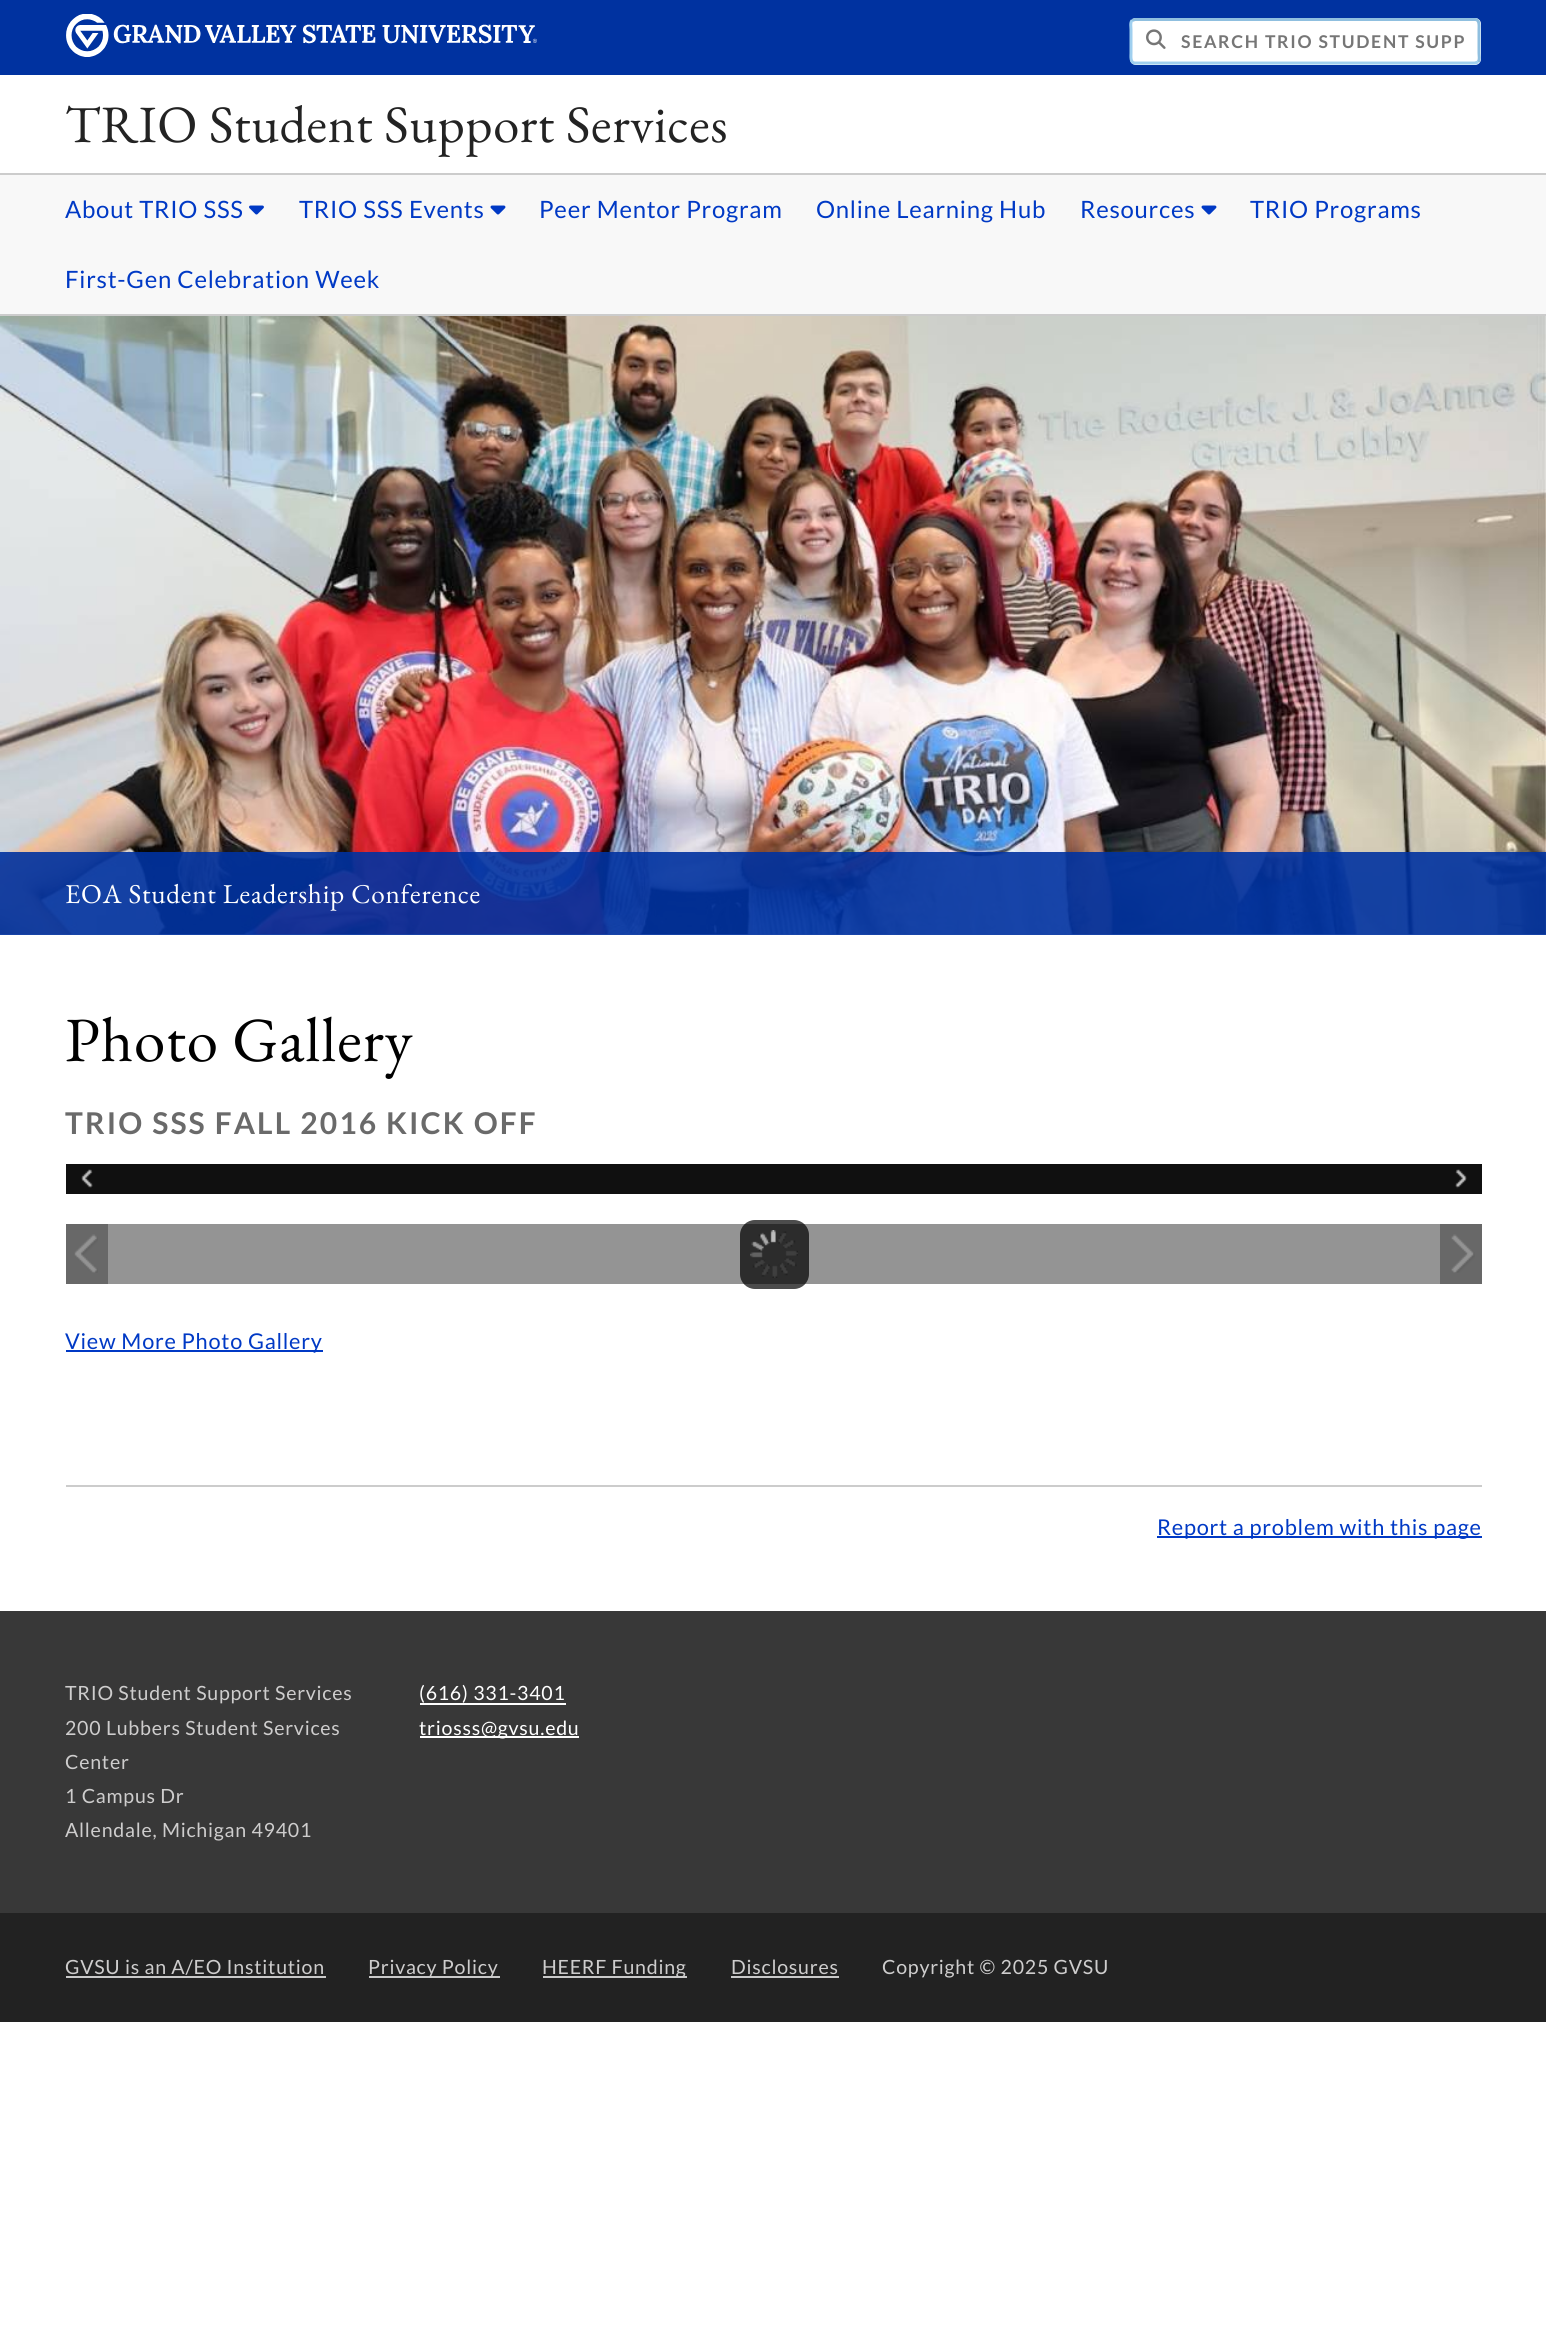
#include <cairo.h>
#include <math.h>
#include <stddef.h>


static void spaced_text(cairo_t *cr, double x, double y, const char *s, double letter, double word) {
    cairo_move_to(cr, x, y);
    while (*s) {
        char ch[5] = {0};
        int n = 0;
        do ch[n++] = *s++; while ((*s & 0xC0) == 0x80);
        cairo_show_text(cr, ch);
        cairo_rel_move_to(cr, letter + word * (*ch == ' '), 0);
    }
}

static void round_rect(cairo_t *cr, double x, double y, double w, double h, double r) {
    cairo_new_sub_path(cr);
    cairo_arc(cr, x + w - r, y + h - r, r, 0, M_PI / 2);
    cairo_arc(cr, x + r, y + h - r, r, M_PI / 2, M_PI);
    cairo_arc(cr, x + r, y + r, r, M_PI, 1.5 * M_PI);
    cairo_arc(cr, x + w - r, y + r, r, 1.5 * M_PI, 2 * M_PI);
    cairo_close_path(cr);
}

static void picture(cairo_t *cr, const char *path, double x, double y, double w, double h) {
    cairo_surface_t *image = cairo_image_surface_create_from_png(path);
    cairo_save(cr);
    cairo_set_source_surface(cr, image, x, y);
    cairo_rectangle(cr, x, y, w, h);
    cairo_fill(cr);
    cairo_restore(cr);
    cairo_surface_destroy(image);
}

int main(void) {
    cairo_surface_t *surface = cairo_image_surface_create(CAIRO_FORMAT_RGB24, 1546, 2336);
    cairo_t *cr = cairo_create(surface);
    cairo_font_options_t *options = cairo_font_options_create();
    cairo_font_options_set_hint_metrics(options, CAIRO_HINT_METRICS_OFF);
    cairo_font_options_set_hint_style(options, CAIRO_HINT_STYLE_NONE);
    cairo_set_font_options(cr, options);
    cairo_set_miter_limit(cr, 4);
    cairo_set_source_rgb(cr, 1, 1, 1);
    cairo_paint(cr);
    cairo_set_source_rgb(cr, 0, 0.196, 0.627);
    cairo_rectangle(cr, 0, 0, 1546, 75);
    cairo_fill(cr);
    picture(cr, "img1.png", 66, 14, 471, 43);
    cairo_set_source_rgb(cr, 1, 1, 1);
    round_rect(cr, 1130, 18, 351, 47, 6);
    cairo_fill(cr);
    cairo_new_path(cr);
    cairo_move_to(cr, 1132, 20.5);
    cairo_line_to(cr, 1135, 19.5);
    cairo_line_to(cr, 1475, 19.5);
    cairo_curve_to(cr, 1480, 19.5, 1479, 26.5, 1479, 29.5);
    cairo_line_to(cr, 1479, 53);
    cairo_curve_to(cr, 1479, 55, 1480, 60, 1478, 62);
    cairo_set_source_rgb(cr, 0.561, 0.749, 0.875);
    cairo_set_line_width(cr, 3);
    cairo_stroke(cr);
    cairo_new_path(cr);
    cairo_move_to(cr, 1478, 62);
    cairo_line_to(cr, 1475, 63);
    cairo_line_to(cr, 1135, 63);
    cairo_curve_to(cr, 1130, 63, 1131, 56, 1131, 53);
    cairo_line_to(cr, 1131, 29.5);
    cairo_curve_to(cr, 1131, 27.5, 1130, 22.5, 1132, 20.5);
    cairo_set_source_rgb(cr, 0.624, 0.812, 0.937);
    cairo_stroke(cr);
    picture(cr, "img2.png", 1146, 29, 20, 20);
    cairo_select_font_face(cr, "Lato", CAIRO_FONT_SLANT_NORMAL, CAIRO_FONT_WEIGHT_BOLD);
    cairo_set_font_size(cr, 17.6);
    cairo_set_source_rgb(cr, 0.463, 0.463, 0.463);
    spaced_text(cr, 1181, 48, "SEARCH TRIO STUDENT SUPP", 1.7, 0);
    cairo_select_font_face(cr, "EB Garamond", CAIRO_FONT_SLANT_NORMAL, CAIRO_FONT_WEIGHT_NORMAL);
    cairo_set_font_size(cr, 52.5);
    cairo_set_source_rgb(cr, 0.137, 0.137, 0.137);
    spaced_text(cr, 65, 142, "TRIO Student Support Services", 0.6, 0);
    cairo_set_source_rgb(cr, 0.969, 0.969, 0.969);
    cairo_rectangle(cr, 0, 175, 1546, 139);
    cairo_fill(cr);
    cairo_set_source_rgb(cr, 0.8, 0.8, 0.8);
    cairo_rectangle(cr, 0, 173, 1546, 2);
    cairo_fill(cr);
    cairo_rectangle(cr, 0, 314, 1546, 2);
    cairo_fill(cr);
    cairo_select_font_face(cr, "Lato", CAIRO_FONT_SLANT_NORMAL, CAIRO_FONT_WEIGHT_NORMAL);
    cairo_set_font_size(cr, 23.9);
    cairo_set_source_rgb(cr, 0, 0.224, 0.773);
    spaced_text(cr, 65, 218, "About TRIO SSS", 0.75, 0);
    picture(cr, "img3.png", 249, 205, 15, 10);
    spaced_text(cr, 299, 218, "TRIO SSS Events", 0.75, 0);
    picture(cr, "img4.png", 490, 205, 16, 10);
    spaced_text(cr, 539, 218, "Peer Mentor Program", 0.75, 0);
    spaced_text(cr, 816, 218, "Online Learning Hub", 0.75, 0);
    spaced_text(cr, 1080, 218, "Resources", 0.75, 0);
    picture(cr, "img4.png", 1201, 205, 16, 10);
    spaced_text(cr, 1250, 218, "TRIO Programs", 0.75, 0);
    spaced_text(cr, 65, 288, "First-Gen Celebration Week", 0.75, 0);
    picture(cr, "img5.png", 0, 316, 1546, 619);
    cairo_set_source_rgba(cr, 0, 0.196, 0.627, 0.9);
    cairo_rectangle(cr, 0, 852, 1546, 83);
    cairo_fill(cr);
    cairo_select_font_face(cr, "EB Garamond", CAIRO_FONT_SLANT_NORMAL, CAIRO_FONT_WEIGHT_NORMAL);
    cairo_set_font_size(cr, 27.25);
    cairo_set_source_rgb(cr, 1, 1, 1);
    spaced_text(cr, 65, 903, "EOA Student Leadership Conference", 0.75, 0);
    cairo_set_font_size(cr, 63);
    cairo_set_source_rgb(cr, 0, 0, 0);
    spaced_text(cr, 65, 1061, "Photo Gallery", 0.9, 0);
    cairo_select_font_face(cr, "Lato", CAIRO_FONT_SLANT_NORMAL, CAIRO_FONT_WEIGHT_BOLD);
    cairo_set_font_size(cr, 30);
    cairo_set_source_rgb(cr, 0.416, 0.416, 0.416);
    spaced_text(cr, 65, 1134, "TRIO SSS FALL 2016 KICK OFF", 2.1, 0);
    cairo_set_source_rgb(cr, 0.063, 0.063, 0.063);
    cairo_rectangle(cr, 66, 1164, 1416, 30);
    cairo_fill(cr);
    picture(cr, "img6.png", 81, 1169, 12, 19);
    picture(cr, "img7.png", 1455, 1169, 12, 20);
    cairo_set_source_rgb(cr, 0.58, 0.58, 0.58);
    cairo_rectangle(cr, 108, 1224, 1332, 60);
    cairo_fill(cr);
    cairo_set_source_rgba(cr, 0, 0, 0, 0.7);
    round_rect(cr, 740, 1220, 69, 69, 15);
    cairo_fill(cr);
    picture(cr, "img8.png", 750, 1230, 48, 48);
    cairo_set_source_rgb(cr, 0.408, 0.408, 0.408);
    cairo_rectangle(cr, 66, 1224, 42, 60);
    cairo_fill(cr);
    picture(cr, "img9.png", 74, 1234, 24, 39);
    cairo_rectangle(cr, 1440, 1224, 42, 60);
    cairo_fill(cr);
    picture(cr, "img10.png", 1451, 1234, 24, 39);
    cairo_set_source_rgb(cr, 0, 0.224, 0.773);
    cairo_rectangle(cr, 66, 1350, 257, 2);
    cairo_fill(cr);
    cairo_select_font_face(cr, "Lato", CAIRO_FONT_SLANT_NORMAL, CAIRO_FONT_WEIGHT_NORMAL);
    cairo_set_font_size(cr, 21.75);
    spaced_text(cr, 65, 1349, "View More Photo Gallery", 0.75, 0);
    cairo_set_source_rgb(cr, 0.8, 0.8, 0.8);
    cairo_rectangle(cr, 66, 1485, 1416, 2);
    cairo_fill(cr);
    cairo_set_source_rgb(cr, 0, 0.224, 0.773);
    cairo_rectangle(cr, 1157, 1536, 325, 2);
    cairo_fill(cr);
    spaced_text(cr, 1157, 1535, "Report a problem with this page", 0.75, 0);
    cairo_set_source_rgb(cr, 0.22, 0.22, 0.22);
    cairo_rectangle(cr, 0, 1611, 1546, 302);
    cairo_fill(cr);
    cairo_set_font_size(cr, 19.6);
    cairo_set_source_rgb(cr, 0.808, 0.804, 0.804);
    spaced_text(cr, 65, 1700, "TRIO Student Support Services", 0.75, 0);
    spaced_text(cr, 65, 1735, "200 Lubbers Student Services", 0.75, 0);
    spaced_text(cr, 65, 1769, "Center", 0.75, 0);
    spaced_text(cr, 65, 1803, "1 Campus Dr", 0.75, 0);
    spaced_text(cr, 65, 1837, "Allendale, Michigan 49401", 0.75, 0);
    cairo_set_source_rgb(cr, 1, 1, 1);
    spaced_text(cr, 419, 1700, "(616) 331-3401", 0.75, 0);
    cairo_rectangle(cr, 420, 1703, 146, 2);
    cairo_fill(cr);
    cairo_rectangle(cr, 420, 1736, 159, 2);
    cairo_fill(cr);
    spaced_text(cr, 419, 1735, "triosss@gvsu.edu", 0.75, 0);
    cairo_set_source_rgb(cr, 0.133, 0.133, 0.133);
    cairo_rectangle(cr, 0, 1913, 1546, 109);
    cairo_fill(cr);
    cairo_set_source_rgb(cr, 0.808, 0.804, 0.804);
    spaced_text(cr, 65, 1974, "GVSU is an A/EO Institution", 0.75, 0);
    cairo_set_source_rgb(cr, 0.788, 0.788, 0.788);
    cairo_rectangle(cr, 66, 1976, 260, 2);
    cairo_fill(cr);
    cairo_rectangle(cr, 369, 1976, 131, 2);
    cairo_fill(cr);
    cairo_set_source_rgb(cr, 0.808, 0.804, 0.804);
    spaced_text(cr, 368, 1974, "Privacy Policy", 0.75, 0);
    cairo_set_source_rgb(cr, 0.788, 0.788, 0.788);
    cairo_rectangle(cr, 543, 1976, 144, 2);
    cairo_fill(cr);
    cairo_set_source_rgb(cr, 0.808, 0.804, 0.804);
    spaced_text(cr, 542, 1974, "HEERF Funding", 0.75, 0);
    spaced_text(cr, 731, 1974, "Disclosures", 0.75, 0);
    cairo_set_source_rgb(cr, 0.788, 0.788, 0.788);
    cairo_rectangle(cr, 731, 1976, 108, 2);
    cairo_fill(cr);
    cairo_set_source_rgb(cr, 0.808, 0.804, 0.804);
    spaced_text(cr, 882, 1974, "Copyright © 2025 GVSU", 0.75, 0);
    cairo_surface_write_to_png(surface, "page.png");
    cairo_font_options_destroy(options);
    cairo_destroy(cr);
    cairo_surface_destroy(surface);
    return 0;
}
